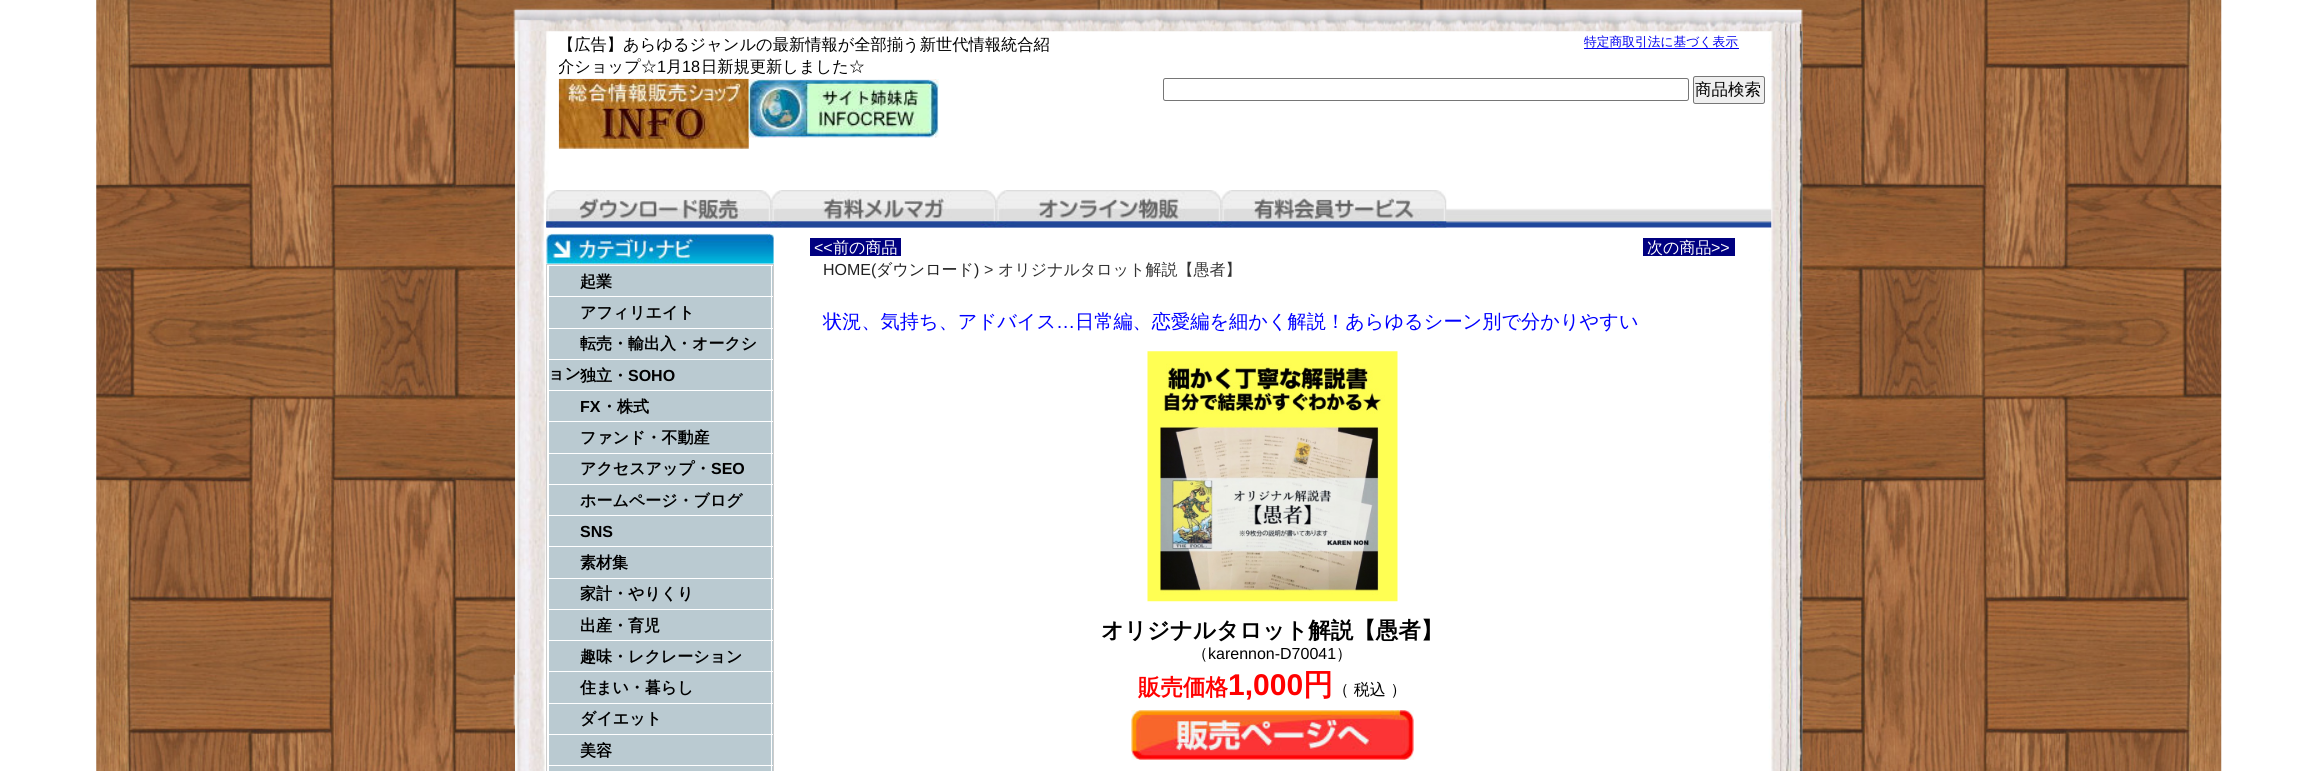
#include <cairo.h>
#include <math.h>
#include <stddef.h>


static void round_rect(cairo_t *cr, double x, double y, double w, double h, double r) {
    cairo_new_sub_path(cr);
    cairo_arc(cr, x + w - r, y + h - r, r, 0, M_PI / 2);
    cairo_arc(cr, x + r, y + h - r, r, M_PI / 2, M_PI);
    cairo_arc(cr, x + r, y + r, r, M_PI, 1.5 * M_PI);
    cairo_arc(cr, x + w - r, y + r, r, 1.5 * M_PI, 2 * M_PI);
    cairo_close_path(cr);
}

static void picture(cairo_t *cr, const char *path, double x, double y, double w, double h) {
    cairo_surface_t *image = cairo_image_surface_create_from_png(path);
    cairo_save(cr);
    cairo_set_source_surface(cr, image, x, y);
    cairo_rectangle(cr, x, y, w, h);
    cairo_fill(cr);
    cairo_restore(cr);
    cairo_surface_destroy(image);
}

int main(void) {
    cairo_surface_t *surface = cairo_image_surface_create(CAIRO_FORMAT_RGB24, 2316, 771);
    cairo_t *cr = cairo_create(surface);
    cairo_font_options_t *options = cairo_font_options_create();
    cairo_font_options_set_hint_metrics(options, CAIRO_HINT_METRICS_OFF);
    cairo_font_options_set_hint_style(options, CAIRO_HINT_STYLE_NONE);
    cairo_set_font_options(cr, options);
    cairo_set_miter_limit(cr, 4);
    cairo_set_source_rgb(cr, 1, 1, 1);
    cairo_paint(cr);
    picture(cr, "img1.png", 96, 0, 2126, 771);
    picture(cr, "img2.png", 515, 31, 1288, 740);
    picture(cr, "img3.png", 546, 208, 1226, 20);
    cairo_select_font_face(cr, "WenQuanYi Zen Hei Medium", CAIRO_FONT_SLANT_NORMAL, CAIRO_FONT_WEIGHT_NORMAL);
    cairo_set_font_size(cr, 16.25);
    cairo_set_source_rgb(cr, 0, 0, 0);
    cairo_move_to(cr, 558, 50);
    cairo_show_text(cr, "【広告】あらゆるジャンルの最新情報が全部揃う新世代情報統合紹");
    cairo_save(cr);
    cairo_rectangle(cr, 559, 34, 500, 45);
    cairo_clip(cr);
    cairo_move_to(cr, 558, 72);
    cairo_show_text(cr, "介ショップ☆");
    cairo_restore(cr);
    cairo_select_font_face(cr, "Liberation Sans", CAIRO_FONT_SLANT_NORMAL, CAIRO_FONT_WEIGHT_NORMAL);
    cairo_move_to(cr, 657, 72);
    cairo_show_text(cr, "1");
    cairo_select_font_face(cr, "WenQuanYi Zen Hei Medium", CAIRO_FONT_SLANT_NORMAL, CAIRO_FONT_WEIGHT_NORMAL);
    cairo_move_to(cr, 666, 72);
    cairo_show_text(cr, "月");
    cairo_select_font_face(cr, "Liberation Sans", CAIRO_FONT_SLANT_NORMAL, CAIRO_FONT_WEIGHT_NORMAL);
    cairo_move_to(cr, 682, 72);
    cairo_show_text(cr, "18");
    cairo_select_font_face(cr, "WenQuanYi Zen Hei Medium", CAIRO_FONT_SLANT_NORMAL, CAIRO_FONT_WEIGHT_NORMAL);
    cairo_move_to(cr, 701, 72);
    cairo_show_text(cr, "日新規更新しました☆");
    cairo_set_source_rgb(cr, 0, 0, 0.933);
    cairo_rectangle(cr, 1584, 48, 155, 1);
    cairo_fill(cr);
    cairo_set_font_size(cr, 12.75);
    cairo_move_to(cr, 1584, 46);
    cairo_show_text(cr, "特定商取引法に基づく表示");
    picture(cr, "img4.png", 558, 78, 191, 71);
    picture(cr, "img5.png", 748, 79, 191, 59);
    round_rect(cr, 1163.5, 78.5, 525, 22, 2);
    cairo_set_source_rgb(cr, 0.463, 0.463, 0.463);
    cairo_set_line_width(cr, 1);
    cairo_stroke(cr);
    cairo_set_source_rgb(cr, 0.937, 0.937, 0.937);
    round_rect(cr, 1693.5, 76.5, 71, 27, 2);
    cairo_fill_preserve(cr);
    cairo_set_source_rgb(cr, 0.463, 0.463, 0.463);
    cairo_stroke(cr);
    cairo_set_font_size(cr, 16.5);
    cairo_set_source_rgb(cr, 0, 0, 0);
    cairo_move_to(cr, 1695, 95);
    cairo_show_text(cr, "商品検索");
    picture(cr, "img6.png", 546, 190, 226, 38);
    picture(cr, "img7.png", 771, 190, 226, 38);
    picture(cr, "img8.png", 996, 190, 226, 38);
    picture(cr, "img9.png", 1221, 190, 226, 38);
    picture(cr, "img10.png", 546, 233, 228, 31);
    cairo_rectangle(cr, 546.5, 264.5, 227, 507);
    cairo_set_source_rgb(cr, 0.8, 0.8, 0.8);
    cairo_stroke(cr);
    cairo_set_source_rgb(cr, 0.729, 0.792, 0.82);
    cairo_rectangle(cr, 549, 266, 224, 30);
    cairo_fill(cr);
    cairo_set_source_rgb(cr, 1, 1, 1);
    cairo_rectangle(cr, 771, 265, 1, 31);
    cairo_fill(cr);
    cairo_select_font_face(cr, "WenQuanYi Zen Hei", CAIRO_FONT_SLANT_NORMAL, CAIRO_FONT_WEIGHT_BOLD);
    cairo_set_font_size(cr, 16);
    cairo_set_source_rgb(cr, 0, 0, 0);
    cairo_move_to(cr, 580, 287);
    cairo_show_text(cr, "起業");
    cairo_set_source_rgb(cr, 0.729, 0.792, 0.82);
    cairo_rectangle(cr, 549, 297, 224, 31);
    cairo_fill(cr);
    cairo_set_source_rgb(cr, 1, 1, 1);
    cairo_rectangle(cr, 771, 296, 1, 32);
    cairo_fill(cr);
    cairo_set_source_rgb(cr, 0, 0, 0);
    cairo_move_to(cr, 580, 318);
    cairo_show_text(cr, "アフィリエイト");
    cairo_set_source_rgb(cr, 0.729, 0.792, 0.82);
    cairo_rectangle(cr, 549, 329, 224, 30);
    cairo_fill(cr);
    cairo_set_source_rgb(cr, 1, 1, 1);
    cairo_rectangle(cr, 771, 328, 1, 31);
    cairo_fill(cr);
    cairo_rectangle(cr, 548, 356, 1, 3);
    cairo_fill(cr);
    cairo_set_source_rgb(cr, 0, 0, 0);
    cairo_move_to(cr, 580, 349);
    cairo_show_text(cr, "転売・輸出入・オークシ");
    cairo_set_source_rgb(cr, 0.729, 0.792, 0.82);
    cairo_rectangle(cr, 549, 360, 224, 30);
    cairo_fill(cr);
    cairo_set_source_rgb(cr, 0, 0, 0);
    cairo_move_to(cr, 548, 379);
    cairo_show_text(cr, "ョン");
    cairo_set_source_rgb(cr, 1, 1, 1);
    cairo_rectangle(cr, 771, 359, 1, 31);
    cairo_fill(cr);
    cairo_rectangle(cr, 548, 372, 1, 4);
    cairo_fill(cr);
    cairo_set_source_rgb(cr, 0, 0, 0);
    cairo_move_to(cr, 580, 381);
    cairo_show_text(cr, "独立・");
    cairo_select_font_face(cr, "Liberation Sans", CAIRO_FONT_SLANT_NORMAL, CAIRO_FONT_WEIGHT_BOLD);
    cairo_move_to(cr, 628, 381);
    cairo_show_text(cr, "SOHO");
    cairo_set_source_rgb(cr, 0.729, 0.792, 0.82);
    cairo_rectangle(cr, 549, 391, 224, 30);
    cairo_fill(cr);
    cairo_set_source_rgb(cr, 1, 1, 1);
    cairo_rectangle(cr, 771, 390, 1, 31);
    cairo_fill(cr);
    cairo_set_source_rgb(cr, 0, 0, 0);
    cairo_move_to(cr, 580, 412);
    cairo_show_text(cr, "FX");
    cairo_select_font_face(cr, "WenQuanYi Zen Hei", CAIRO_FONT_SLANT_NORMAL, CAIRO_FONT_WEIGHT_BOLD);
    cairo_move_to(cr, 601, 412);
    cairo_show_text(cr, "・株式");
    cairo_set_source_rgb(cr, 0.729, 0.792, 0.82);
    cairo_rectangle(cr, 549, 422, 224, 31);
    cairo_fill(cr);
    cairo_set_source_rgb(cr, 1, 1, 1);
    cairo_rectangle(cr, 771, 421, 1, 32);
    cairo_fill(cr);
    cairo_rectangle(cr, 548, 431, 1, 2);
    cairo_fill(cr);
    cairo_set_source_rgb(cr, 0, 0, 0);
    cairo_move_to(cr, 580, 443);
    cairo_show_text(cr, "ファンド・不動産");
    cairo_set_source_rgb(cr, 0.729, 0.792, 0.82);
    cairo_rectangle(cr, 549, 454, 224, 30);
    cairo_fill(cr);
    cairo_set_source_rgb(cr, 1, 1, 1);
    cairo_rectangle(cr, 771, 453, 1, 31);
    cairo_fill(cr);
    cairo_rectangle(cr, 548, 453, 1, 31);
    cairo_fill(cr);
    cairo_set_source_rgb(cr, 0, 0, 0);
    cairo_move_to(cr, 580, 474);
    cairo_show_text(cr, "アクセスアップ・");
    cairo_select_font_face(cr, "Liberation Sans", CAIRO_FONT_SLANT_NORMAL, CAIRO_FONT_WEIGHT_BOLD);
    cairo_move_to(cr, 711, 474);
    cairo_show_text(cr, "SEO");
    cairo_set_source_rgb(cr, 0.729, 0.792, 0.82);
    cairo_rectangle(cr, 549, 485, 224, 30);
    cairo_fill(cr);
    cairo_set_source_rgb(cr, 1, 1, 1);
    cairo_rectangle(cr, 771, 484, 1, 31);
    cairo_fill(cr);
    cairo_select_font_face(cr, "WenQuanYi Zen Hei", CAIRO_FONT_SLANT_NORMAL, CAIRO_FONT_WEIGHT_BOLD);
    cairo_set_source_rgb(cr, 0, 0, 0);
    cairo_move_to(cr, 580, 506);
    cairo_show_text(cr, "ホームページ・ブログ");
    cairo_set_source_rgb(cr, 0.729, 0.792, 0.82);
    cairo_rectangle(cr, 549, 516, 224, 30);
    cairo_fill(cr);
    cairo_set_source_rgb(cr, 1, 1, 1);
    cairo_rectangle(cr, 771, 515, 1, 31);
    cairo_fill(cr);
    cairo_rectangle(cr, 548, 539, 1, 7);
    cairo_fill(cr);
    cairo_select_font_face(cr, "Liberation Sans", CAIRO_FONT_SLANT_NORMAL, CAIRO_FONT_WEIGHT_BOLD);
    cairo_set_source_rgb(cr, 0, 0, 0);
    cairo_move_to(cr, 580, 537);
    cairo_show_text(cr, "SNS");
    cairo_set_source_rgb(cr, 0.729, 0.792, 0.82);
    cairo_rectangle(cr, 549, 547, 224, 31);
    cairo_fill(cr);
    cairo_set_source_rgb(cr, 1, 1, 1);
    cairo_rectangle(cr, 771, 546, 1, 32);
    cairo_fill(cr);
    cairo_rectangle(cr, 548, 556, 1, 2);
    cairo_fill(cr);
    cairo_select_font_face(cr, "WenQuanYi Zen Hei", CAIRO_FONT_SLANT_NORMAL, CAIRO_FONT_WEIGHT_BOLD);
    cairo_set_source_rgb(cr, 0, 0, 0);
    cairo_move_to(cr, 580, 568);
    cairo_show_text(cr, "素材集");
    cairo_set_source_rgb(cr, 0.729, 0.792, 0.82);
    cairo_rectangle(cr, 549, 579, 224, 30);
    cairo_fill(cr);
    cairo_set_source_rgb(cr, 1, 1, 1);
    cairo_rectangle(cr, 771, 578, 1, 31);
    cairo_fill(cr);
    cairo_rectangle(cr, 548, 578, 1, 9);
    cairo_fill(cr);
    cairo_set_source_rgb(cr, 0, 0, 0);
    cairo_move_to(cr, 580, 599);
    cairo_show_text(cr, "家計・やりくり");
    cairo_set_source_rgb(cr, 0.729, 0.792, 0.82);
    cairo_rectangle(cr, 549, 610, 224, 30);
    cairo_fill(cr);
    cairo_set_source_rgb(cr, 1, 1, 1);
    cairo_rectangle(cr, 771, 609, 1, 31);
    cairo_fill(cr);
    cairo_rectangle(cr, 548, 631, 1, 9);
    cairo_fill(cr);
    cairo_set_source_rgb(cr, 0, 0, 0);
    cairo_move_to(cr, 580, 631);
    cairo_show_text(cr, "出産・育児");
    cairo_set_source_rgb(cr, 0.729, 0.792, 0.82);
    cairo_rectangle(cr, 549, 641, 224, 30);
    cairo_fill(cr);
    cairo_set_source_rgb(cr, 1, 1, 1);
    cairo_rectangle(cr, 771, 640, 1, 31);
    cairo_fill(cr);
    cairo_rectangle(cr, 548, 669, 1, 19);
    cairo_fill(cr);
    cairo_set_source_rgb(cr, 0, 0, 0);
    cairo_move_to(cr, 580, 662);
    cairo_show_text(cr, "趣味・レクレーション");
    cairo_set_source_rgb(cr, 0.729, 0.792, 0.82);
    cairo_rectangle(cr, 549, 672, 224, 31);
    cairo_fill(cr);
    cairo_set_source_rgb(cr, 1, 1, 1);
    cairo_rectangle(cr, 771, 671, 1, 32);
    cairo_fill(cr);
    cairo_set_source_rgb(cr, 0, 0, 0);
    cairo_move_to(cr, 580, 693);
    cairo_show_text(cr, "住まい・暮らし");
    cairo_set_source_rgb(cr, 0.729, 0.792, 0.82);
    cairo_rectangle(cr, 549, 704, 224, 30);
    cairo_fill(cr);
    cairo_set_source_rgb(cr, 1, 1, 1);
    cairo_rectangle(cr, 771, 703, 1, 31);
    cairo_fill(cr);
    cairo_rectangle(cr, 548, 703, 1, 7);
    cairo_fill(cr);
    cairo_set_source_rgb(cr, 0, 0, 0);
    cairo_move_to(cr, 580, 724);
    cairo_show_text(cr, "ダイエット");
    cairo_set_source_rgb(cr, 0.729, 0.792, 0.82);
    cairo_rectangle(cr, 549, 735, 224, 30);
    cairo_fill(cr);
    cairo_set_source_rgb(cr, 1, 1, 1);
    cairo_rectangle(cr, 771, 734, 1, 31);
    cairo_fill(cr);
    cairo_set_source_rgb(cr, 0, 0, 0);
    cairo_move_to(cr, 580, 756);
    cairo_show_text(cr, "美容");
    cairo_set_source_rgb(cr, 0.729, 0.792, 0.82);
    cairo_rectangle(cr, 548, 766, 225, 5);
    cairo_fill(cr);
    cairo_set_source_rgb(cr, 1, 1, 1);
    cairo_rectangle(cr, 771, 765, 1, 6);
    cairo_fill(cr);
    cairo_rectangle(cr, 548, 765, 1, 6);
    cairo_fill(cr);
    cairo_set_source_rgb(cr, 0, 0, 0.502);
    cairo_rectangle(cr, 810, 238, 91, 18);
    cairo_fill(cr);
    cairo_select_font_face(cr, "Liberation Sans", CAIRO_FONT_SLANT_NORMAL, CAIRO_FONT_WEIGHT_NORMAL);
    cairo_set_source_rgb(cr, 1, 1, 1);
    cairo_move_to(cr, 814, 253);
    cairo_show_text(cr, "<<");
    cairo_select_font_face(cr, "WenQuanYi Zen Hei Medium", CAIRO_FONT_SLANT_NORMAL, CAIRO_FONT_WEIGHT_NORMAL);
    cairo_move_to(cr, 833, 253);
    cairo_show_text(cr, "前の商品");
    cairo_set_source_rgb(cr, 0, 0, 0.502);
    cairo_rectangle(cr, 1643, 238, 92, 18);
    cairo_fill(cr);
    cairo_set_source_rgb(cr, 1, 1, 1);
    cairo_move_to(cr, 1647, 253);
    cairo_show_text(cr, "次の商品");
    cairo_select_font_face(cr, "Liberation Sans", CAIRO_FONT_SLANT_NORMAL, CAIRO_FONT_WEIGHT_NORMAL);
    cairo_move_to(cr, 1711, 253);
    cairo_show_text(cr, ">>");
    cairo_set_source_rgb(cr, 0.133, 0.133, 0.133);
    cairo_move_to(cr, 823, 275);
    cairo_show_text(cr, "HOME(");
    cairo_select_font_face(cr, "WenQuanYi Zen Hei Medium", CAIRO_FONT_SLANT_NORMAL, CAIRO_FONT_WEIGHT_NORMAL);
    cairo_move_to(cr, 876, 275);
    cairo_show_text(cr, "ダウンロード");
    cairo_select_font_face(cr, "Liberation Sans", CAIRO_FONT_SLANT_NORMAL, CAIRO_FONT_WEIGHT_NORMAL);
    cairo_move_to(cr, 974, 275);
    cairo_show_text(cr, ")");
    cairo_set_source_rgb(cr, 0.2, 0.2, 0.2);
    cairo_move_to(cr, 984, 275);
    cairo_show_text(cr, ">");
    cairo_select_font_face(cr, "WenQuanYi Zen Hei Medium", CAIRO_FONT_SLANT_NORMAL, CAIRO_FONT_WEIGHT_NORMAL);
    cairo_move_to(cr, 998, 275);
    cairo_show_text(cr, "オリジナルタロット解説【愚者】");
    cairo_set_font_size(cr, 19.2);
    cairo_set_source_rgb(cr, 0, 0, 1);
    cairo_move_to(cr, 823, 328);
    cairo_show_text(cr, "状況、気持ち、アドバイス");
    cairo_select_font_face(cr, "Liberation Sans", CAIRO_FONT_SLANT_NORMAL, CAIRO_FONT_WEIGHT_NORMAL);
    cairo_move_to(cr, 1056, 328);
    cairo_show_text(cr, "…");
    cairo_select_font_face(cr, "WenQuanYi Zen Hei Medium", CAIRO_FONT_SLANT_NORMAL, CAIRO_FONT_WEIGHT_NORMAL);
    cairo_move_to(cr, 1075, 328);
    cairo_show_text(cr, "日常編、恋愛編を細かく解説！あらゆるシーン別で分かりやすい");
    picture(cr, "img11.png", 1147, 351, 251, 251);
    cairo_select_font_face(cr, "WenQuanYi Zen Hei", CAIRO_FONT_SLANT_NORMAL, CAIRO_FONT_WEIGHT_BOLD);
    cairo_set_font_size(cr, 22.5);
    cairo_set_source_rgb(cr, 0, 0, 0);
    cairo_move_to(cr, 1101, 638);
    cairo_show_text(cr, "オリジナルタロット解説【愚者】");
    cairo_select_font_face(cr, "WenQuanYi Zen Hei Medium", CAIRO_FONT_SLANT_NORMAL, CAIRO_FONT_WEIGHT_NORMAL);
    cairo_set_font_size(cr, 16);
    cairo_move_to(cr, 1192, 659);
    cairo_show_text(cr, "（");
    cairo_select_font_face(cr, "Liberation Sans", CAIRO_FONT_SLANT_NORMAL, CAIRO_FONT_WEIGHT_NORMAL);
    cairo_move_to(cr, 1208, 659);
    cairo_show_text(cr, "karennon-D70041");
    cairo_select_font_face(cr, "WenQuanYi Zen Hei Medium", CAIRO_FONT_SLANT_NORMAL, CAIRO_FONT_WEIGHT_NORMAL);
    cairo_move_to(cr, 1336, 659);
    cairo_show_text(cr, "）");
    cairo_select_font_face(cr, "WenQuanYi Zen Hei", CAIRO_FONT_SLANT_NORMAL, CAIRO_FONT_WEIGHT_BOLD);
    cairo_set_font_size(cr, 22.5);
    cairo_set_source_rgb(cr, 1, 0, 0);
    cairo_move_to(cr, 1138, 695);
    cairo_show_text(cr, "販売価格");
    cairo_select_font_face(cr, "Liberation Sans", CAIRO_FONT_SLANT_NORMAL, CAIRO_FONT_WEIGHT_BOLD);
    cairo_set_font_size(cr, 30);
    cairo_move_to(cr, 1228, 695);
    cairo_show_text(cr, "1,000");
    cairo_select_font_face(cr, "WenQuanYi Zen Hei", CAIRO_FONT_SLANT_NORMAL, CAIRO_FONT_WEIGHT_BOLD);
    cairo_move_to(cr, 1303, 695);
    cairo_show_text(cr, "円");
    cairo_select_font_face(cr, "WenQuanYi Zen Hei Medium", CAIRO_FONT_SLANT_NORMAL, CAIRO_FONT_WEIGHT_NORMAL);
    cairo_set_font_size(cr, 16);
    cairo_set_source_rgb(cr, 0, 0, 0);
    cairo_move_to(cr, 1333, 695);
    cairo_show_text(cr, "（ 税込 ）");
    picture(cr, "img12.png", 1131, 710, 283, 50);
    cairo_surface_write_to_png(surface, "page.png");
    cairo_font_options_destroy(options);
    cairo_destroy(cr);
    cairo_surface_destroy(surface);
    return 0;
}
